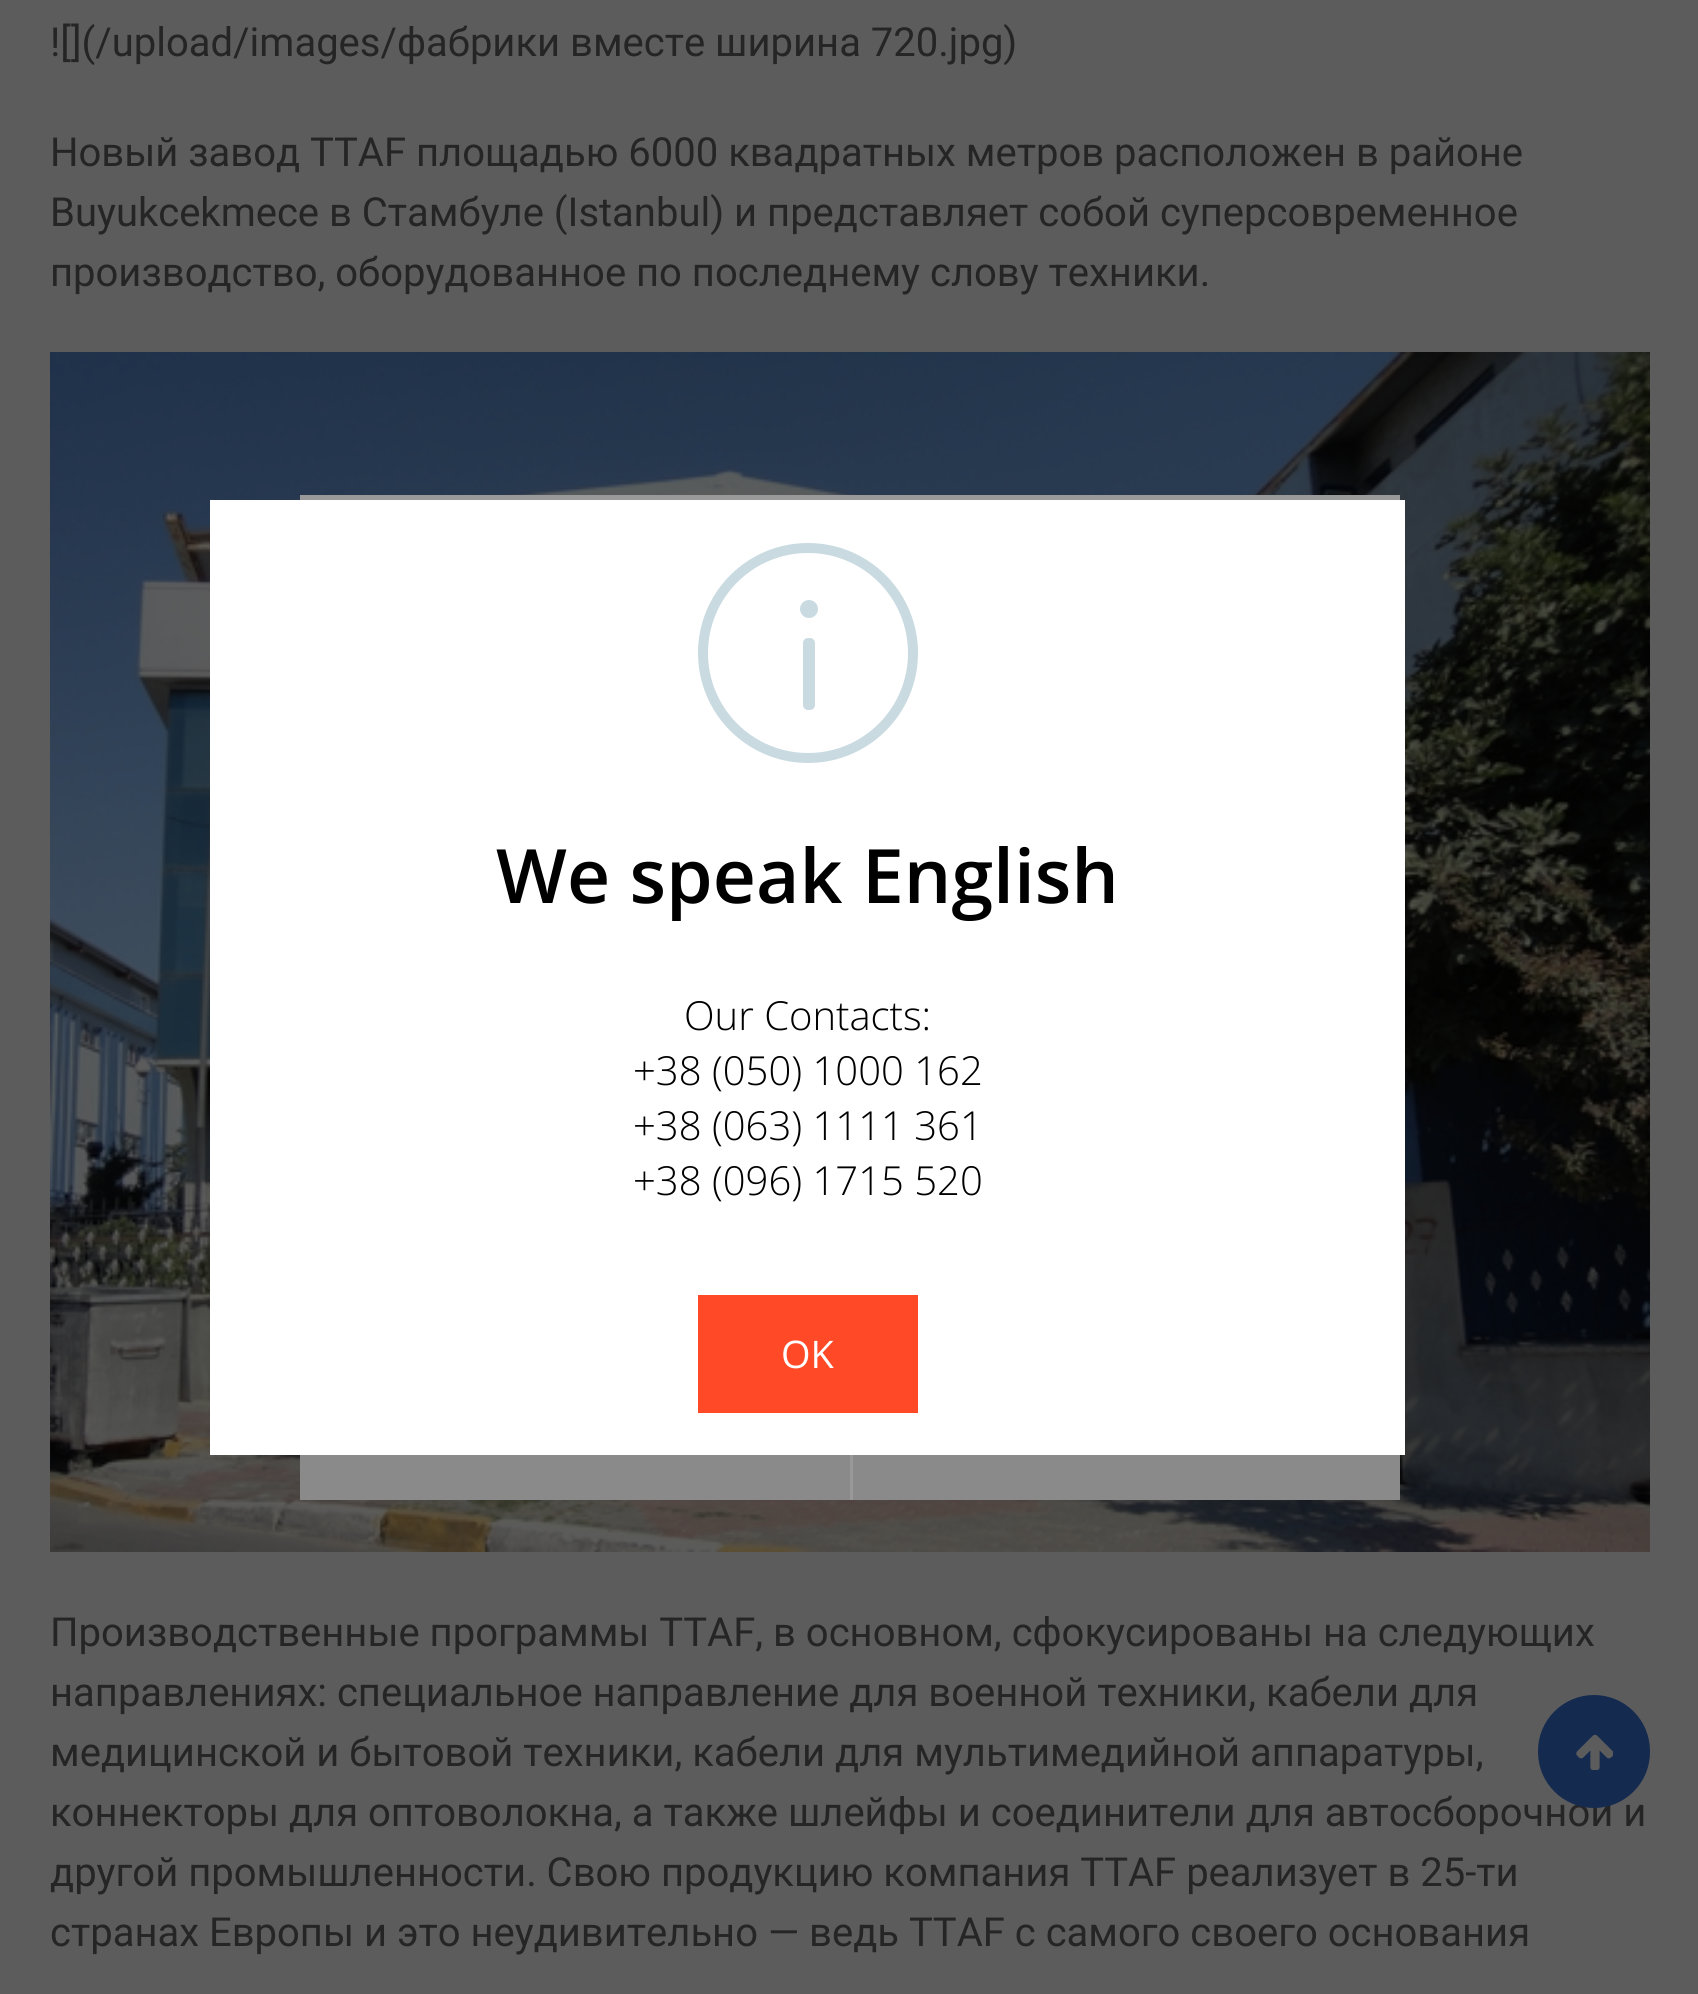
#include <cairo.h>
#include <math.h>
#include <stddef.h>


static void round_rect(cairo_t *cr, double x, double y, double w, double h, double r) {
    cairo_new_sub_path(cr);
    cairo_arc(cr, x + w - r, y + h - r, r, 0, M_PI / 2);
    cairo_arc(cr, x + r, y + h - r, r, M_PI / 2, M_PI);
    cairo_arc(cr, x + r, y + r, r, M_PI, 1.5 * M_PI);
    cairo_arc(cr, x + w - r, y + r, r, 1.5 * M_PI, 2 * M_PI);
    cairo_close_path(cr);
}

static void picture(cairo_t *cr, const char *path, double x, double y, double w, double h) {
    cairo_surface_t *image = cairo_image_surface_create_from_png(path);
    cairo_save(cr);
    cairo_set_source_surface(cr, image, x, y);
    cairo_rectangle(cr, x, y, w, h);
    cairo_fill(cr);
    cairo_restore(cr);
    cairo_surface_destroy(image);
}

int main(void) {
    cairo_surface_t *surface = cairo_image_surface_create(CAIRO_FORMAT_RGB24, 1698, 1994);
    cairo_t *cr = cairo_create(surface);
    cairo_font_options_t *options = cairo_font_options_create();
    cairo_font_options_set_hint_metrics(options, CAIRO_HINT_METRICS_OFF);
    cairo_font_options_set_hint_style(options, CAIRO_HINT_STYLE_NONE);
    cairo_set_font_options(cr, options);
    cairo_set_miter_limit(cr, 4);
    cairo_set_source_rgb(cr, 0.361, 0.361, 0.361);
    cairo_paint(cr);
    cairo_select_font_face(cr, "Roboto", CAIRO_FONT_SLANT_NORMAL, CAIRO_FONT_WEIGHT_NORMAL);
    cairo_set_font_size(cr, 40);
    cairo_set_source_rgb(cr, 0.145, 0.145, 0.145);
    cairo_move_to(cr, 50, 56);
    cairo_show_text(cr, "![](/upload/images/фабрики вместе ширина 720.jpg)");
    cairo_move_to(cr, 50, 166);
    cairo_show_text(cr, "Новый завод TTAF площадью 6000 квадратных метров расположен в районе");
    cairo_move_to(cr, 50, 226);
    cairo_show_text(cr, "Buyukcekmece в Стамбуле (Istanbul) и представляет собой суперсовременное");
    cairo_move_to(cr, 50, 286);
    cairo_show_text(cr, "производство, оборудованное по последнему слову техники.");
    picture(cr, "img1.png", 50, 352, 1600, 1200);
    cairo_move_to(cr, 50, 1646);
    cairo_show_text(cr, "Производственные программы TTAF, в основном, сфокусированы на следующих");
    cairo_move_to(cr, 50, 1706);
    cairo_show_text(cr, "направлениях: специальное направление для военной техники, кабели для");
    cairo_move_to(cr, 50, 1766);
    cairo_show_text(cr, "медицинской и бытовой техники, кабели для мультимедийной аппаратуры,");
    cairo_move_to(cr, 50, 1826);
    cairo_show_text(cr, "коннекторы для оптоволокна, а также шлейфы и соединители для автосборочной и");
    cairo_move_to(cr, 50, 1886);
    cairo_show_text(cr, "другой промышленности. Свою продукцию компания TTAF реализует в 25-ти");
    cairo_move_to(cr, 50, 1946);
    cairo_show_text(cr, "странах Европы и это неудивительно — ведь TTAF с самого своего основания");
    cairo_set_source_rgb(cr, 0.6, 0.6, 0.6);
    cairo_rectangle(cr, 300, 495, 1100, 5);
    cairo_fill(cr);
    cairo_set_source_rgb(cr, 0.541, 0.541, 0.541);
    cairo_rectangle(cr, 300, 1455, 550, 45);
    cairo_fill(cr);
    cairo_set_source_rgb(cr, 0.6, 0.6, 0.6);
    cairo_rectangle(cr, 850, 1455, 3, 45);
    cairo_fill(cr);
    cairo_set_source_rgb(cr, 0.541, 0.541, 0.541);
    cairo_rectangle(cr, 853, 1455, 547, 45);
    cairo_fill(cr);
    cairo_set_source_rgb(cr, 1, 1, 1);
    cairo_rectangle(cr, 210, 500, 1195, 955);
    cairo_fill(cr);
    cairo_arc(cr, 808, 653, 105, 0, 2 * M_PI);
    cairo_set_source_rgb(cr, 0.788, 0.855, 0.882);
    cairo_set_line_width(cr, 10);
    cairo_stroke(cr);
    cairo_arc(cr, 809, 609, 9, 0, 2 * M_PI);
    cairo_fill(cr);
    round_rect(cr, 803, 638, 12, 72, 5);
    cairo_fill(cr);
    cairo_select_font_face(cr, "Open Sans SemiBold", CAIRO_FONT_SLANT_NORMAL, CAIRO_FONT_WEIGHT_NORMAL);
    cairo_set_font_size(cr, 75);
    cairo_set_source_rgb(cr, 0, 0, 0);
    cairo_move_to(cr, 496, 903);
    cairo_show_text(cr, "We speak English");
    cairo_select_font_face(cr, "Open Sans Light", CAIRO_FONT_SLANT_NORMAL, CAIRO_FONT_WEIGHT_NORMAL);
    cairo_set_font_size(cr, 40);
    cairo_move_to(cr, 684, 1030);
    cairo_show_text(cr, "Our Contacts:");
    cairo_move_to(cr, 633, 1085);
    cairo_show_text(cr, "+38 (050) 1000 162");
    cairo_move_to(cr, 633, 1140);
    cairo_show_text(cr, "+38 (063) 1111 361");
    cairo_move_to(cr, 633, 1195);
    cairo_show_text(cr, "+38 (096) 1715 520");
    cairo_set_source_rgb(cr, 1, 0.286, 0.153);
    cairo_rectangle(cr, 698, 1295, 220, 118);
    cairo_fill(cr);
    cairo_select_font_face(cr, "Open Sans", CAIRO_FONT_SLANT_NORMAL, CAIRO_FONT_WEIGHT_NORMAL);
    cairo_set_font_size(cr, 38);
    cairo_set_source_rgb(cr, 1, 1, 1);
    cairo_move_to(cr, 781, 1368);
    cairo_show_text(cr, "OK");
    cairo_set_source_rgb(cr, 0.082, 0.165, 0.31);
    round_rect(cr, 1538, 1695, 112, 113, 56);
    cairo_fill(cr);
    picture(cr, "img2.png", 1576, 1734, 37, 36);
    cairo_surface_write_to_png(surface, "page.png");
    cairo_font_options_destroy(options);
    cairo_destroy(cr);
    cairo_surface_destroy(surface);
    return 0;
}
